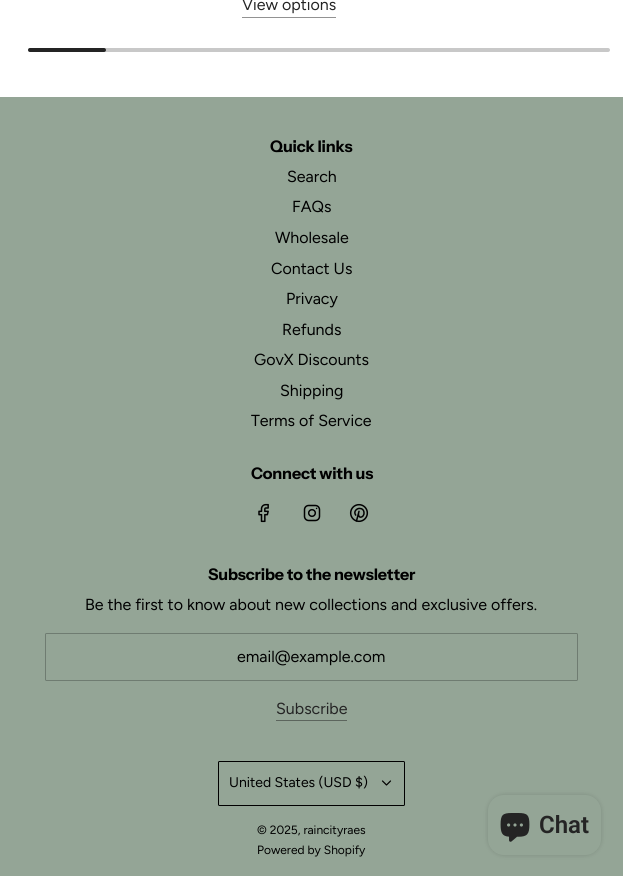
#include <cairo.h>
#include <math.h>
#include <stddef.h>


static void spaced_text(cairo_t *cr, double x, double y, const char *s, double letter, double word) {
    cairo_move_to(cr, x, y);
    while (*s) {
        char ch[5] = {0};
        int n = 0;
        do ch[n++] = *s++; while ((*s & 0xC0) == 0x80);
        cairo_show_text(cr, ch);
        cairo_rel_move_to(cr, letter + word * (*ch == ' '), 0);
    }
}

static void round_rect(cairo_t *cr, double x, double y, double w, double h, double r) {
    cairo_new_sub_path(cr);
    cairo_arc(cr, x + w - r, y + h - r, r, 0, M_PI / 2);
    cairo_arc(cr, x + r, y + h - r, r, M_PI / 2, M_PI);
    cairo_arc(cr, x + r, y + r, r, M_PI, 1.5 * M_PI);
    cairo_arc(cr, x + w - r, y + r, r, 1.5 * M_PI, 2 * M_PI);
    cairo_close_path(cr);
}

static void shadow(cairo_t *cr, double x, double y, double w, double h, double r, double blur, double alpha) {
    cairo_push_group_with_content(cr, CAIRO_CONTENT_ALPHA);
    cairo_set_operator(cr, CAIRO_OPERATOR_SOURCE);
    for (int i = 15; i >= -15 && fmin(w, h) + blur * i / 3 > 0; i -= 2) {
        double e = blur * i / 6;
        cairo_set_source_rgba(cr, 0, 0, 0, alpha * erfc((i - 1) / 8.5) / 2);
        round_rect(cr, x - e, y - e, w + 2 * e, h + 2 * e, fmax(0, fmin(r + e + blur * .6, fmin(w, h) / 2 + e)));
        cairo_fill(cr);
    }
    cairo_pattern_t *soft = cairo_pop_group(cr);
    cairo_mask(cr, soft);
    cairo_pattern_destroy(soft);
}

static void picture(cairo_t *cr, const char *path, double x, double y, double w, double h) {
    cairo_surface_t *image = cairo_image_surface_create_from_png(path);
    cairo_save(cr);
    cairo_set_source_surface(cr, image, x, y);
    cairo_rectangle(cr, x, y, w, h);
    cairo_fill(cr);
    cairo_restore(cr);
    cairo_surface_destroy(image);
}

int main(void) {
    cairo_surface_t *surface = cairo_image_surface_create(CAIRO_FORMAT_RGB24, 623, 876);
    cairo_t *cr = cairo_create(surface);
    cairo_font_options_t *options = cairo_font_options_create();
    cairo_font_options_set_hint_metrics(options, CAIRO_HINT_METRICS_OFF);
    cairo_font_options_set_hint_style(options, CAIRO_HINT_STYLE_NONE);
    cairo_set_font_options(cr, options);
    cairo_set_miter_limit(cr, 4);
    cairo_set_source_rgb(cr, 1, 1, 1);
    cairo_paint(cr);
    cairo_set_source_rgb(cr, 0.573, 0.573, 0.573);
    cairo_rectangle(cr, 242, 17, 94, 1);
    cairo_fill(cr);
    cairo_select_font_face(cr, "Figtree", CAIRO_FONT_SLANT_NORMAL, CAIRO_FONT_WEIGHT_NORMAL);
    cairo_set_font_size(cr, 16);
    cairo_set_source_rgb(cr, 0.141, 0.141, 0.141);
    cairo_move_to(cr, 242, 10);
    cairo_show_text(cr, "View options");
    cairo_set_source_rgb(cr, 0.784, 0.784, 0.784);
    round_rect(cr, 28, 48, 582, 4, 2);
    cairo_fill(cr);
    cairo_set_source_rgb(cr, 0.141, 0.141, 0.141);
    round_rect(cr, 28, 48, 78, 4, 2);
    cairo_fill(cr);
    cairo_set_source_rgb(cr, 0.58, 0.647, 0.588);
    cairo_rectangle(cr, 0, 97, 623, 779);
    cairo_fill(cr);
    cairo_select_font_face(cr, "Instrument Sans", CAIRO_FONT_SLANT_NORMAL, CAIRO_FONT_WEIGHT_BOLD);
    cairo_set_source_rgb(cr, 0, 0, 0);
    spaced_text(cr, 270, 152, "Quick links", -0.15, 0);
    cairo_select_font_face(cr, "Figtree", CAIRO_FONT_SLANT_NORMAL, CAIRO_FONT_WEIGHT_NORMAL);
    cairo_move_to(cr, 287, 182);
    cairo_show_text(cr, "Search");
    cairo_move_to(cr, 292, 212);
    cairo_show_text(cr, "FAQs");
    cairo_move_to(cr, 275, 243);
    cairo_show_text(cr, "Wholesale");
    cairo_move_to(cr, 271, 274);
    cairo_show_text(cr, "Contact Us");
    cairo_move_to(cr, 286, 304);
    cairo_show_text(cr, "Privacy");
    cairo_move_to(cr, 282, 335);
    cairo_show_text(cr, "Refunds");
    cairo_move_to(cr, 254, 365);
    cairo_show_text(cr, "GovX Discounts");
    cairo_move_to(cr, 280, 396);
    cairo_show_text(cr, "Shipping");
    cairo_move_to(cr, 251, 426);
    cairo_show_text(cr, "Terms of Service");
    cairo_select_font_face(cr, "Instrument Sans", CAIRO_FONT_SLANT_NORMAL, CAIRO_FONT_WEIGHT_BOLD);
    spaced_text(cr, 251, 479, "Connect with us", -0.15, 0);
    picture(cr, "img1.png", 258, 503, 11, 20);
    picture(cr, "img2.png", 303, 504, 18, 18);
    picture(cr, "img3.png", 349, 503, 20, 20);
    spaced_text(cr, 208, 580, "Subscribe to the newsletter", -0.15, 0);
    cairo_select_font_face(cr, "Figtree", CAIRO_FONT_SLANT_NORMAL, CAIRO_FONT_WEIGHT_NORMAL);
    cairo_move_to(cr, 85, 610);
    cairo_show_text(cr, "Be the first to know about new collections and exclusive offers.");
    round_rect(cr, 45.5, 633.5, 532, 47, 1);
    cairo_set_source_rgb(cr, 0.435, 0.486, 0.443);
    cairo_set_line_width(cr, 1);
    cairo_stroke(cr);
    cairo_set_source_rgb(cr, 0, 0, 0);
    cairo_move_to(cr, 237, 662);
    cairo_show_text(cr, "email@example.com");
    cairo_set_source_rgb(cr, 0.361, 0.396, 0.365);
    cairo_rectangle(cr, 276, 720, 71, 1);
    cairo_fill(cr);
    cairo_set_source_rgb(cr, 0.141, 0.141, 0.141);
    cairo_move_to(cr, 276, 714);
    cairo_show_text(cr, "Subscribe");
    round_rect(cr, 218.5, 761.5, 186, 44, 1);
    cairo_set_source_rgb(cr, 0, 0, 0);
    cairo_stroke(cr);
    cairo_set_font_size(cr, 14);
    cairo_move_to(cr, 229, 787);
    cairo_show_text(cr, "United States (USD $)");
    cairo_new_path(cr);
    cairo_move_to(cr, 382.5, 781);
    cairo_line_to(cr, 386.5, 785);
    cairo_line_to(cr, 390.5, 781);
    cairo_set_line_width(cr, 1.2);
    cairo_set_line_cap(cr, CAIRO_LINE_CAP_ROUND);
    cairo_set_line_join(cr, CAIRO_LINE_JOIN_ROUND);
    cairo_stroke(cr);
    cairo_set_font_size(cr, 12);
    cairo_move_to(cr, 257, 834);
    cairo_show_text(cr, "© 2025, raincityraes");
    cairo_move_to(cr, 257, 854);
    cairo_show_text(cr, "Powered by Shopify");
    cairo_set_source_rgb(cr, 0, 0, 0);
    shadow(cr, 488, 795, 113, 60, 16, 2.5, 0.15);
    cairo_set_source_rgb(cr, 0.58, 0.647, 0.588);
    round_rect(cr, 488, 795, 113, 60, 16);
    cairo_fill(cr);
    picture(cr, "img4.png", 500, 813, 30, 29);
    cairo_select_font_face(cr, "Roboto SemiBold", CAIRO_FONT_SLANT_NORMAL, CAIRO_FONT_WEIGHT_NORMAL);
    cairo_set_font_size(cr, 24);
    cairo_set_source_rgb(cr, 0.141, 0.141, 0.141);
    cairo_move_to(cr, 539, 833);
    cairo_show_text(cr, "Chat");
    cairo_surface_write_to_png(surface, "page.png");
    cairo_font_options_destroy(options);
    cairo_destroy(cr);
    cairo_surface_destroy(surface);
    return 0;
}
